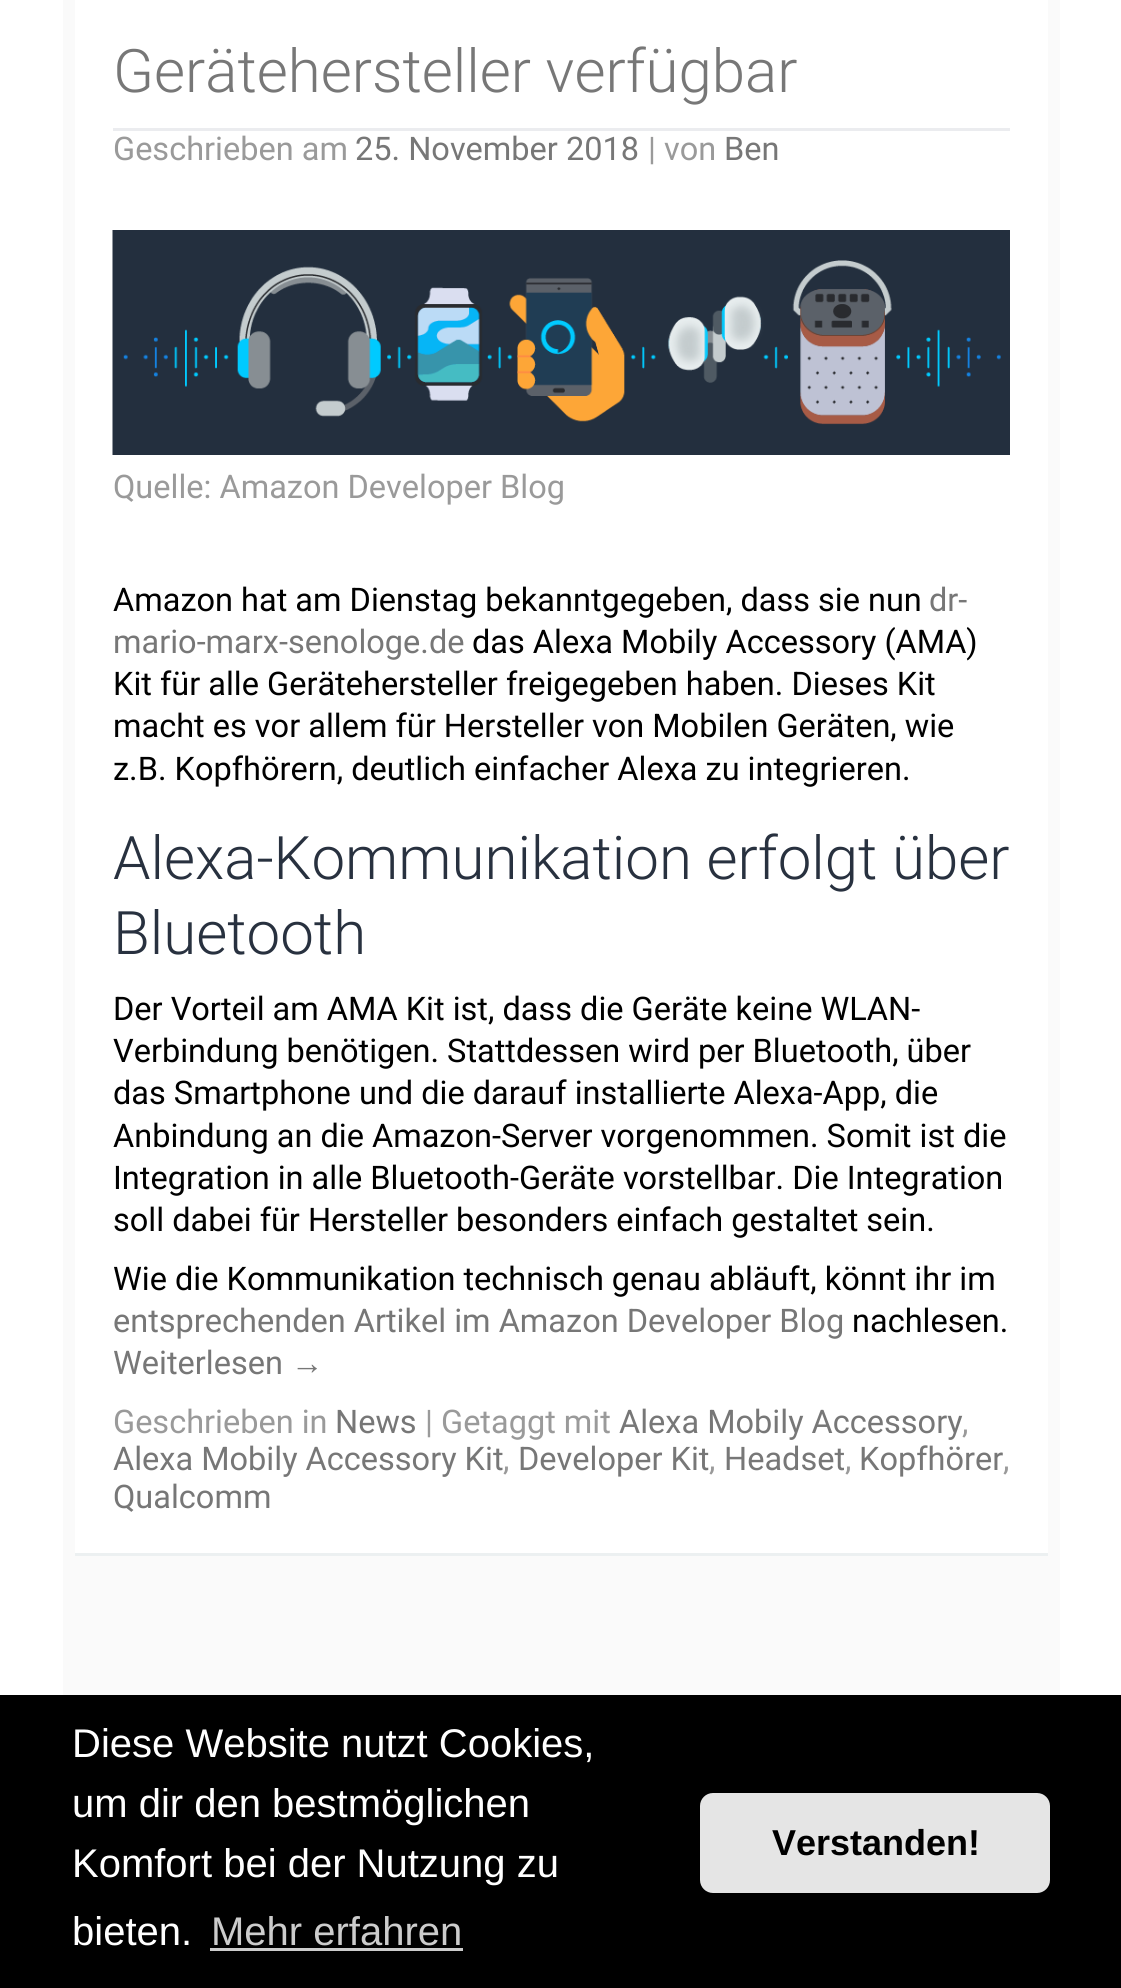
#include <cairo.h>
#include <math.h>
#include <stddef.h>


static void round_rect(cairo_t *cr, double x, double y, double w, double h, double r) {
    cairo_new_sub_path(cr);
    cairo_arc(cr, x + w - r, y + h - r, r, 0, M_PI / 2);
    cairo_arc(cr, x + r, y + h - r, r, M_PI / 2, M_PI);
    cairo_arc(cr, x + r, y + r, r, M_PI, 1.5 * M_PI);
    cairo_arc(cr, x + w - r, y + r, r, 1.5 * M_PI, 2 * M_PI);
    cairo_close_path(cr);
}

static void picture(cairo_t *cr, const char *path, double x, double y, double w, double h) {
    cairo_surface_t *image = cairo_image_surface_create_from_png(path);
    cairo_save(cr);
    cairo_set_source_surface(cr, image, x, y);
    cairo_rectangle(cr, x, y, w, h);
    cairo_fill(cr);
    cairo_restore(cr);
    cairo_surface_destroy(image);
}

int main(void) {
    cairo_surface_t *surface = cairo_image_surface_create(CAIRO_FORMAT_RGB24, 1121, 1988);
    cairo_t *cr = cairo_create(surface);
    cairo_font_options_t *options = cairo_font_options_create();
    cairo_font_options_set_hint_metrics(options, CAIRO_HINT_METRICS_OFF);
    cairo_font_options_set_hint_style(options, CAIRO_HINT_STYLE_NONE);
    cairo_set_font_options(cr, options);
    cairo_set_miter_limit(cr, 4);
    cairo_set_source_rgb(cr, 1, 1, 1);
    cairo_paint(cr);
    cairo_set_source_rgb(cr, 0.98, 0.98, 0.98);
    cairo_rectangle(cr, 63, 0, 997, 1695);
    cairo_fill(cr);
    cairo_set_source_rgb(cr, 1, 1, 1);
    cairo_rectangle(cr, 75, 0, 973, 1553);
    cairo_fill(cr);
    cairo_set_source_rgb(cr, 0.925, 0.941, 0.945);
    cairo_rectangle(cr, 75, 1553, 973, 3);
    cairo_fill(cr);
    cairo_set_source_rgb(cr, 0.918, 0.925, 0.937);
    cairo_rectangle(cr, 113, 128, 897, 3);
    cairo_fill(cr);
    cairo_select_font_face(cr, "Roboto Light", CAIRO_FONT_SLANT_NORMAL, CAIRO_FONT_WEIGHT_NORMAL);
    cairo_set_font_size(cr, 60);
    cairo_set_source_rgb(cr, 0.467, 0.467, 0.467);
    cairo_move_to(cr, 113, 92);
    cairo_show_text(cr, "Gerätehersteller verfügbar");
    cairo_select_font_face(cr, "Roboto", CAIRO_FONT_SLANT_NORMAL, CAIRO_FONT_WEIGHT_NORMAL);
    cairo_set_font_size(cr, 32.5);
    cairo_set_source_rgb(cr, 0.604, 0.604, 0.604);
    cairo_move_to(cr, 113, 160);
    cairo_show_text(cr, "Geschrieben am");
    cairo_set_source_rgb(cr, 0.467, 0.467, 0.467);
    cairo_move_to(cr, 355, 160);
    cairo_show_text(cr, "25. November 2018");
    cairo_set_source_rgb(cr, 0.604, 0.604, 0.604);
    cairo_move_to(cr, 648, 160);
    cairo_show_text(cr, "|");
    cairo_move_to(cr, 664, 160);
    cairo_show_text(cr, "von");
    cairo_set_source_rgb(cr, 0.467, 0.467, 0.467);
    cairo_move_to(cr, 724, 160);
    cairo_show_text(cr, "Ben");
    picture(cr, "img1.png", 112, 230, 898, 225);
    cairo_set_source_rgb(cr, 0.604, 0.604, 0.604);
    cairo_move_to(cr, 113, 498);
    cairo_show_text(cr, "Quelle: Amazon Developer Blog");
    cairo_set_source_rgb(cr, 0, 0, 0);
    cairo_move_to(cr, 113, 611);
    cairo_show_text(cr, "Amazon hat am Dienstag bekanntgegeben, dass sie nun");
    cairo_set_source_rgb(cr, 0.467, 0.467, 0.467);
    cairo_move_to(cr, 929, 611);
    cairo_show_text(cr, "dr-");
    cairo_move_to(cr, 113, 653);
    cairo_show_text(cr, "mario-marx-senologe.de");
    cairo_set_source_rgb(cr, 0, 0, 0);
    cairo_move_to(cr, 472, 653);
    cairo_show_text(cr, "das Alexa Mobily Accessory (AMA)");
    cairo_move_to(cr, 113, 695);
    cairo_show_text(cr, "Kit für alle Gerätehersteller freigegeben haben. Dieses Kit");
    cairo_move_to(cr, 113, 737);
    cairo_show_text(cr, "macht es vor allem für Hersteller von Mobilen Geräten, wie");
    cairo_move_to(cr, 113, 780);
    cairo_show_text(cr, "z.B. Kopfhörern, deutlich einfacher Alexa zu integrieren.");
    cairo_select_font_face(cr, "Roboto Light", CAIRO_FONT_SLANT_NORMAL, CAIRO_FONT_WEIGHT_NORMAL);
    cairo_set_font_size(cr, 60);
    cairo_set_source_rgb(cr, 0.157, 0.192, 0.247);
    cairo_move_to(cr, 113, 879);
    cairo_show_text(cr, "Alexa-Kommunikation erfolgt über");
    cairo_move_to(cr, 113, 954);
    cairo_show_text(cr, "Bluetooth");
    cairo_select_font_face(cr, "Roboto", CAIRO_FONT_SLANT_NORMAL, CAIRO_FONT_WEIGHT_NORMAL);
    cairo_set_font_size(cr, 32.5);
    cairo_set_source_rgb(cr, 0, 0, 0);
    cairo_move_to(cr, 113, 1020);
    cairo_show_text(cr, "Der Vorteil am AMA Kit ist, dass die Geräte keine WLAN-");
    cairo_move_to(cr, 113, 1062);
    cairo_show_text(cr, "Verbindung benötigen. Stattdessen wird per Bluetooth, über");
    cairo_move_to(cr, 113, 1104);
    cairo_show_text(cr, "das Smartphone und die darauf installierte Alexa-App, die");
    cairo_move_to(cr, 113, 1147);
    cairo_show_text(cr, "Anbindung an die Amazon-Server vorgenommen. Somit ist die");
    cairo_move_to(cr, 113, 1189);
    cairo_show_text(cr, "Integration in alle Bluetooth-Geräte vorstellbar. Die Integration");
    cairo_move_to(cr, 113, 1231);
    cairo_show_text(cr, "soll dabei für Hersteller besonders einfach gestaltet sein.");
    cairo_move_to(cr, 113, 1290);
    cairo_show_text(cr, "Wie die Kommunikation technisch genau abläuft, könnt ihr im");
    cairo_set_source_rgb(cr, 0.467, 0.467, 0.467);
    cairo_move_to(cr, 113, 1332);
    cairo_show_text(cr, "entsprechenden Artikel im Amazon Developer Blog");
    cairo_set_source_rgb(cr, 0, 0, 0);
    cairo_move_to(cr, 852, 1332);
    cairo_show_text(cr, "nachlesen.");
    cairo_set_source_rgb(cr, 0.467, 0.467, 0.467);
    cairo_move_to(cr, 113, 1374);
    cairo_show_text(cr, "Weiterlesen");
    cairo_select_font_face(cr, "Liberation Sans", CAIRO_FONT_SLANT_NORMAL, CAIRO_FONT_WEIGHT_NORMAL);
    cairo_move_to(cr, 291, 1374);
    cairo_show_text(cr, "→");
    cairo_select_font_face(cr, "Roboto", CAIRO_FONT_SLANT_NORMAL, CAIRO_FONT_WEIGHT_NORMAL);
    cairo_set_source_rgb(cr, 0.604, 0.604, 0.604);
    cairo_move_to(cr, 113, 1433);
    cairo_show_text(cr, "Geschrieben in");
    cairo_set_source_rgb(cr, 0.467, 0.467, 0.467);
    cairo_move_to(cr, 335, 1433);
    cairo_show_text(cr, "News");
    cairo_set_source_rgb(cr, 0.604, 0.604, 0.604);
    cairo_move_to(cr, 425, 1433);
    cairo_show_text(cr, "| Getaggt mit");
    cairo_set_source_rgb(cr, 0.467, 0.467, 0.467);
    cairo_move_to(cr, 619, 1433);
    cairo_show_text(cr, "Alexa Mobily Accessory");
    cairo_set_source_rgb(cr, 0.604, 0.604, 0.604);
    cairo_move_to(cr, 962, 1433);
    cairo_show_text(cr, ",");
    cairo_set_source_rgb(cr, 0.467, 0.467, 0.467);
    cairo_move_to(cr, 113, 1470);
    cairo_show_text(cr, "Alexa Mobily Accessory Kit");
    cairo_set_source_rgb(cr, 0.604, 0.604, 0.604);
    cairo_move_to(cr, 503, 1470);
    cairo_show_text(cr, ",");
    cairo_set_source_rgb(cr, 0.467, 0.467, 0.467);
    cairo_move_to(cr, 518, 1470);
    cairo_show_text(cr, "Developer Kit");
    cairo_set_source_rgb(cr, 0.604, 0.604, 0.604);
    cairo_move_to(cr, 709, 1470);
    cairo_show_text(cr, ",");
    cairo_set_source_rgb(cr, 0.467, 0.467, 0.467);
    cairo_move_to(cr, 724, 1470);
    cairo_show_text(cr, "Headset");
    cairo_set_source_rgb(cr, 0.604, 0.604, 0.604);
    cairo_move_to(cr, 845, 1470);
    cairo_show_text(cr, ",");
    cairo_set_source_rgb(cr, 0.467, 0.467, 0.467);
    cairo_move_to(cr, 859, 1470);
    cairo_show_text(cr, "Kopfhörer");
    cairo_set_source_rgb(cr, 0.604, 0.604, 0.604);
    cairo_move_to(cr, 1003, 1470);
    cairo_show_text(cr, ",");
    cairo_set_source_rgb(cr, 0.467, 0.467, 0.467);
    cairo_move_to(cr, 113, 1508);
    cairo_show_text(cr, "Qualcomm");
    cairo_set_source_rgb(cr, 0, 0, 0);
    cairo_rectangle(cr, 0, 1695, 1121, 293);
    cairo_fill(cr);
    cairo_select_font_face(cr, "Liberation Sans", CAIRO_FONT_SLANT_NORMAL, CAIRO_FONT_WEIGHT_NORMAL);
    cairo_set_font_size(cr, 40);
    cairo_set_source_rgb(cr, 1, 1, 1);
    cairo_move_to(cr, 72, 1757);
    cairo_show_text(cr, "Diese Website nutzt Cookies,");
    cairo_move_to(cr, 72, 1817);
    cairo_show_text(cr, "um dir den bestmöglichen");
    cairo_move_to(cr, 72, 1877);
    cairo_show_text(cr, "Komfort bei der Nutzung zu");
    cairo_move_to(cr, 72, 1945);
    cairo_show_text(cr, "bieten.");
    cairo_set_source_rgb(cr, 0.8, 0.8, 0.8);
    cairo_move_to(cr, 211, 1945);
    cairo_show_text(cr, "Mehr erfahren");
    cairo_rectangle(cr, 210, 1948, 253, 3);
    cairo_fill(cr);
    cairo_set_source_rgb(cr, 0.898, 0.898, 0.898);
    round_rect(cr, 700, 1793, 350, 100, 13);
    cairo_fill(cr);
    cairo_select_font_face(cr, "Liberation Sans", CAIRO_FONT_SLANT_NORMAL, CAIRO_FONT_WEIGHT_BOLD);
    cairo_set_font_size(cr, 36);
    cairo_set_source_rgb(cr, 0, 0, 0);
    cairo_move_to(cr, 772, 1855);
    cairo_show_text(cr, "Verstanden!");
    cairo_surface_write_to_png(surface, "page.png");
    cairo_font_options_destroy(options);
    cairo_destroy(cr);
    cairo_surface_destroy(surface);
    return 0;
}
